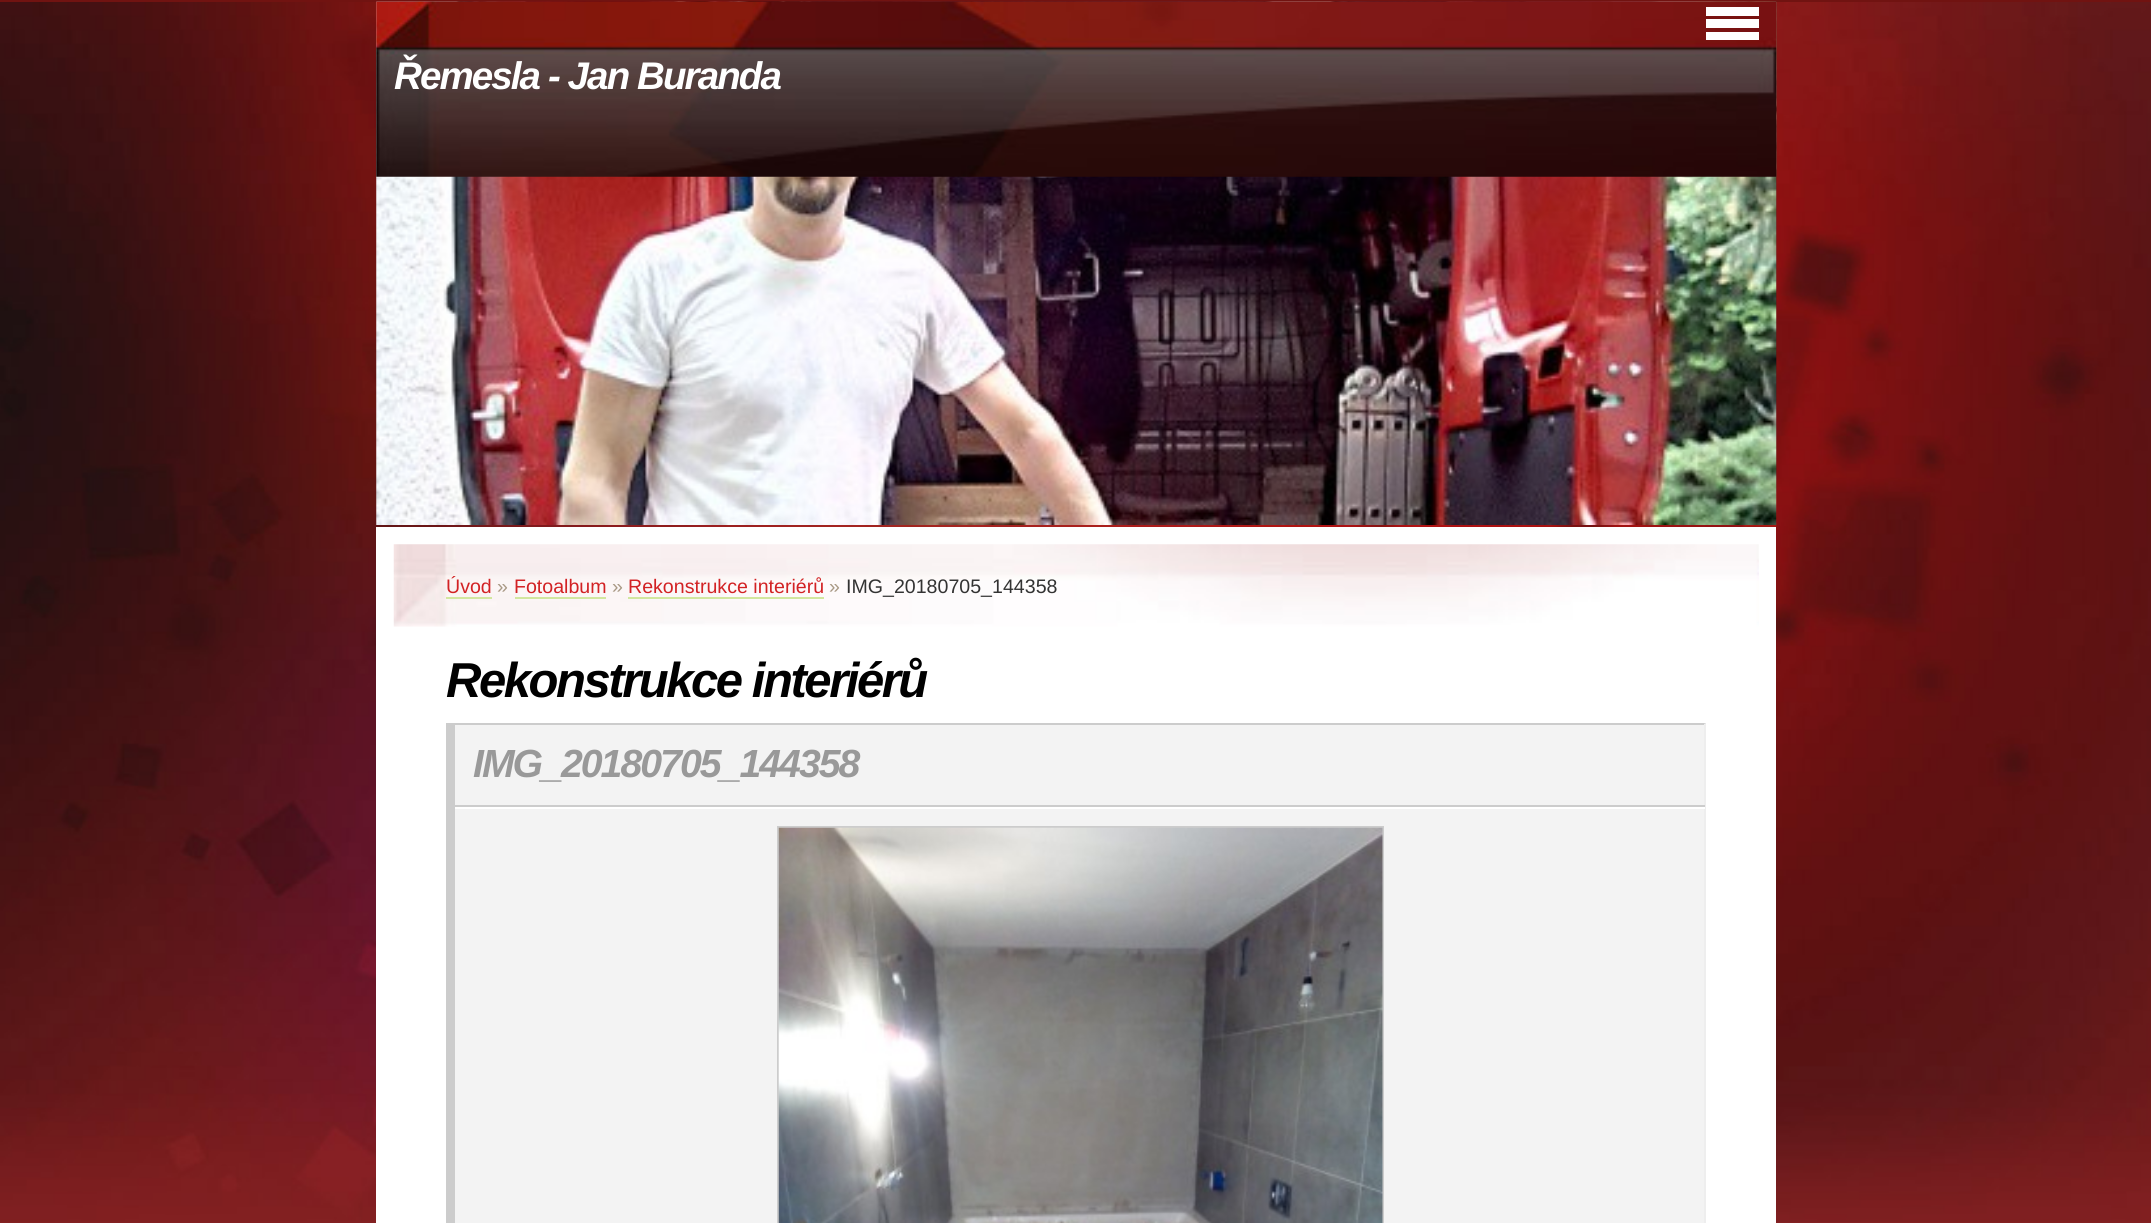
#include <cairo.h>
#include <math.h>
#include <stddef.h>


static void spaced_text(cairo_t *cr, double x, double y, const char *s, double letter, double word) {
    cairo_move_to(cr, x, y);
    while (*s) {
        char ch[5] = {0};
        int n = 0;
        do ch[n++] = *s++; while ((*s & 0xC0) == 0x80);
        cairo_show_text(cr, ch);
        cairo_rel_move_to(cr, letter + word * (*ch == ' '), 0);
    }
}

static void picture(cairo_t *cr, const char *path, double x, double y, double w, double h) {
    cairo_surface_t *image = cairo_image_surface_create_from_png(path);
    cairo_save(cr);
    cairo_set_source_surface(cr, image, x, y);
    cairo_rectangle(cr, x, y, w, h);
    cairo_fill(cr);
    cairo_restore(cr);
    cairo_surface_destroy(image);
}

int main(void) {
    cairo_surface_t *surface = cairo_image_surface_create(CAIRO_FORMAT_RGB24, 2151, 1223);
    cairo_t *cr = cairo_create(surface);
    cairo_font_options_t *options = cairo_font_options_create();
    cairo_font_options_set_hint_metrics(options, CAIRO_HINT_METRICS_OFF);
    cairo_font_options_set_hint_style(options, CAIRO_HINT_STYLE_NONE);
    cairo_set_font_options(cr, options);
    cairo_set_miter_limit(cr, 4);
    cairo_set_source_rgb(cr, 0.514, 0.129, 0.133);
    cairo_paint(cr);
    picture(cr, "img1.png", 0, 2, 2151, 1220);
    cairo_set_source_rgb(cr, 0.443, 0.075, 0.067);
    cairo_rectangle(cr, 0, 0, 2151, 2);
    cairo_fill(cr);
    picture(cr, "img2.png", 1741, 1, 36, 526);
    picture(cr, "img3.png", 376, 1, 1401, 524);
    picture(cr, "img4.png", 376, 1, 1401, 176);
    cairo_set_source_rgb(cr, 1, 1, 1);
    cairo_rectangle(cr, 1706, 7, 53, 9);
    cairo_fill(cr);
    cairo_rectangle(cr, 1706, 19, 53, 9);
    cairo_fill(cr);
    cairo_rectangle(cr, 1706, 32, 53, 8);
    cairo_fill(cr);
    cairo_select_font_face(cr, "Liberation Sans", CAIRO_FONT_SLANT_ITALIC, CAIRO_FONT_WEIGHT_BOLD);
    cairo_set_font_size(cr, 38.5);
    spaced_text(cr, 394, 89, "Řemesla - Jan Buranda", -1.9, 0);
    cairo_rectangle(cr, 376, 527, 1400, 696);
    cairo_fill(cr);
    picture(cr, "img5.png", 393, 544, 1366, 83);
    cairo_select_font_face(cr, "Liberation Sans", CAIRO_FONT_SLANT_NORMAL, CAIRO_FONT_WEIGHT_NORMAL);
    cairo_set_font_size(cr, 19.6);
    cairo_set_source_rgb(cr, 0.824, 0.133, 0.141);
    cairo_move_to(cr, 446, 593);
    cairo_show_text(cr, "Úvod");
    cairo_set_source_rgb(cr, 0.824, 0.906, 0.624);
    cairo_rectangle(cr, 446, 597, 46, 2);
    cairo_fill(cr);
    cairo_set_source_rgb(cr, 0.663, 0.6, 0.522);
    cairo_move_to(cr, 497, 593);
    cairo_show_text(cr, "»");
    cairo_set_source_rgb(cr, 0.824, 0.133, 0.141);
    cairo_move_to(cr, 514, 593);
    cairo_show_text(cr, "Fotoalbum");
    cairo_set_source_rgb(cr, 0.824, 0.906, 0.624);
    cairo_rectangle(cr, 515, 597, 91, 2);
    cairo_fill(cr);
    cairo_set_source_rgb(cr, 0.663, 0.6, 0.522);
    cairo_move_to(cr, 612, 593);
    cairo_show_text(cr, "»");
    cairo_set_source_rgb(cr, 0.824, 0.133, 0.141);
    cairo_move_to(cr, 628, 593);
    cairo_show_text(cr, "Rekonstrukce interiérů");
    cairo_set_source_rgb(cr, 0.824, 0.906, 0.624);
    cairo_rectangle(cr, 628, 597, 196, 2);
    cairo_fill(cr);
    cairo_set_source_rgb(cr, 0.663, 0.6, 0.522);
    cairo_move_to(cr, 829, 593);
    cairo_show_text(cr, "»");
    cairo_set_source_rgb(cr, 0.2, 0.2, 0.2);
    cairo_move_to(cr, 846, 593);
    cairo_show_text(cr, "IMG_20180705_144358");
    cairo_select_font_face(cr, "Liberation Sans", CAIRO_FONT_SLANT_ITALIC, CAIRO_FONT_WEIGHT_BOLD);
    cairo_set_font_size(cr, 49);
    cairo_set_source_rgb(cr, 0, 0, 0);
    spaced_text(cr, 446, 697, "Rekonstrukce interiérů", -2.45, 0);
    cairo_set_source_rgb(cr, 0.953, 0.953, 0.953);
    cairo_rectangle(cr, 455, 725, 1249, 498);
    cairo_fill(cr);
    cairo_set_source_rgb(cr, 0.8, 0.8, 0.8);
    cairo_rectangle(cr, 446, 723, 1260, 2);
    cairo_fill(cr);
    cairo_set_source_rgb(cr, 0.933, 0.933, 0.933);
    cairo_new_path(cr);
    cairo_move_to(cr, 1706, 723);
    cairo_line_to(cr, 1706, 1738);
    cairo_line_to(cr, 1704, 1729);
    cairo_line_to(cr, 1704, 724);
    cairo_close_path(cr);
    cairo_fill(cr);
    cairo_set_source_rgb(cr, 0.8, 0.8, 0.8);
    cairo_new_path(cr);
    cairo_move_to(cr, 446, 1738);
    cairo_line_to(cr, 446, 723);
    cairo_line_to(cr, 455, 724);
    cairo_line_to(cr, 455, 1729);
    cairo_close_path(cr);
    cairo_fill(cr);
    cairo_rectangle(cr, 455, 805, 1250, 2);
    cairo_fill(cr);
    cairo_set_font_size(cr, 39.25);
    cairo_set_source_rgb(cr, 0.6, 0.6, 0.6);
    spaced_text(cr, 473, 777, "IMG_20180705_144358", -2, 0);
    cairo_set_source_rgb(cr, 1, 1, 1);
    cairo_rectangle(cr, 455, 807, 1250, 2);
    cairo_fill(cr);
    cairo_rectangle(cr, 778, 827, 605, 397);
    cairo_set_source_rgb(cr, 0.8, 0.8, 0.8);
    cairo_stroke(cr);
    picture(cr, "img6.png", 778, 827, 605, 396);
    cairo_surface_write_to_png(surface, "page.png");
    cairo_font_options_destroy(options);
    cairo_destroy(cr);
    cairo_surface_destroy(surface);
    return 0;
}
